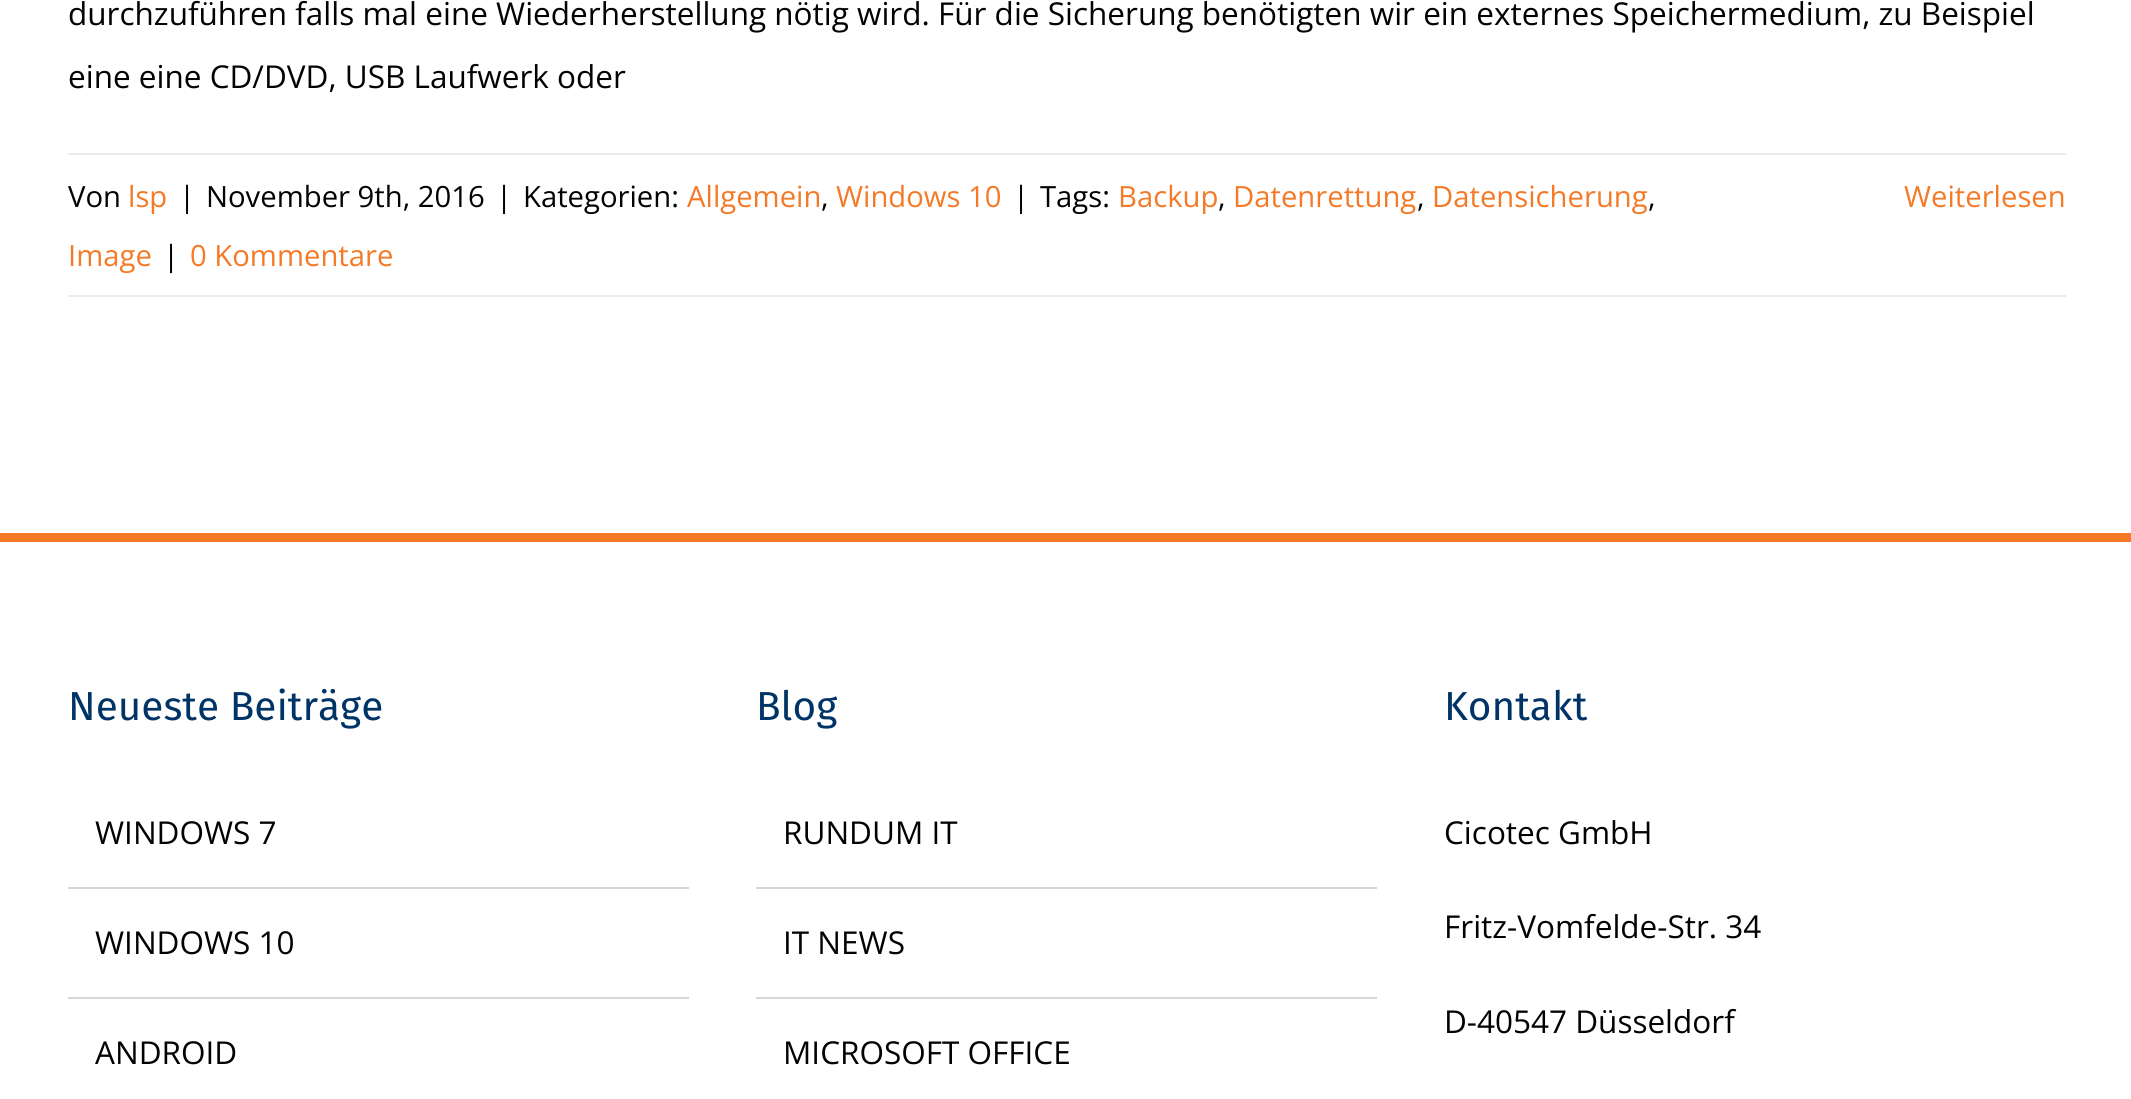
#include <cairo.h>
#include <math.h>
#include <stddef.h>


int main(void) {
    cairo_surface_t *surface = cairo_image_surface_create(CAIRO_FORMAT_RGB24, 2131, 1099);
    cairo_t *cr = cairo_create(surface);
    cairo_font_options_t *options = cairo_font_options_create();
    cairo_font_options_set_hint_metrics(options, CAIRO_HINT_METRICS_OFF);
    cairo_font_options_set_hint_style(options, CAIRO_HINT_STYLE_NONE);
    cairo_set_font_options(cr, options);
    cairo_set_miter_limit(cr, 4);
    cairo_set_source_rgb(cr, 1, 1, 1);
    cairo_paint(cr);
    cairo_select_font_face(cr, "Open Sans", CAIRO_FONT_SLANT_NORMAL, CAIRO_FONT_WEIGHT_NORMAL);
    cairo_set_font_size(cr, 31.5);
    cairo_set_source_rgb(cr, 0.008, 0.008, 0.008);
    cairo_move_to(cr, 68, 25);
    cairo_show_text(cr, "durchzuführen falls mal eine Wiederherstellung nötig wird. Für die Sicherung benötigten wir ein externes Speichermedium, zu Beispiel");
    cairo_move_to(cr, 68, 88);
    cairo_show_text(cr, "eine eine CD/DVD, USB Laufwerk oder");
    cairo_set_source_rgb(cr, 0.918, 0.918, 0.918);
    cairo_rectangle(cr, 68, 153, 1998, 2);
    cairo_fill(cr);
    cairo_rectangle(cr, 68, 295, 1998, 2);
    cairo_fill(cr);
    cairo_set_font_size(cr, 29.25);
    cairo_set_source_rgb(cr, 0.008, 0.008, 0.008);
    cairo_move_to(cr, 68, 207);
    cairo_show_text(cr, "Von");
    cairo_set_source_rgb(cr, 0.957, 0.478, 0.153);
    cairo_move_to(cr, 128, 207);
    cairo_show_text(cr, "lsp");
    cairo_set_source_rgb(cr, 0.008, 0.008, 0.008);
    cairo_move_to(cr, 179, 207);
    cairo_show_text(cr, "|");
    cairo_move_to(cr, 206, 207);
    cairo_show_text(cr, "November 9th, 2016");
    cairo_move_to(cr, 496, 207);
    cairo_show_text(cr, "|");
    cairo_move_to(cr, 523, 207);
    cairo_show_text(cr, "Kategorien:");
    cairo_set_source_rgb(cr, 0.957, 0.478, 0.153);
    cairo_move_to(cr, 687, 207);
    cairo_show_text(cr, "Allgemein");
    cairo_set_source_rgb(cr, 0.008, 0.008, 0.008);
    cairo_move_to(cr, 821, 207);
    cairo_show_text(cr, ",");
    cairo_set_source_rgb(cr, 0.957, 0.478, 0.153);
    cairo_move_to(cr, 836, 207);
    cairo_show_text(cr, "Windows 10");
    cairo_set_source_rgb(cr, 0.008, 0.008, 0.008);
    cairo_move_to(cr, 1013, 207);
    cairo_show_text(cr, "|");
    cairo_move_to(cr, 1040, 207);
    cairo_show_text(cr, "Tags:");
    cairo_set_source_rgb(cr, 0.957, 0.478, 0.153);
    cairo_move_to(cr, 1118, 207);
    cairo_show_text(cr, "Backup");
    cairo_set_source_rgb(cr, 0.008, 0.008, 0.008);
    cairo_move_to(cr, 1218, 207);
    cairo_show_text(cr, ",");
    cairo_set_source_rgb(cr, 0.957, 0.478, 0.153);
    cairo_move_to(cr, 1233, 207);
    cairo_show_text(cr, "Datenrettung");
    cairo_set_source_rgb(cr, 0.008, 0.008, 0.008);
    cairo_move_to(cr, 1417, 207);
    cairo_show_text(cr, ",");
    cairo_set_source_rgb(cr, 0.957, 0.478, 0.153);
    cairo_move_to(cr, 1432, 207);
    cairo_show_text(cr, "Datensicherung");
    cairo_set_source_rgb(cr, 0.008, 0.008, 0.008);
    cairo_move_to(cr, 1648, 207);
    cairo_show_text(cr, ",");
    cairo_set_source_rgb(cr, 0.957, 0.478, 0.153);
    cairo_move_to(cr, 68, 266);
    cairo_show_text(cr, "Image");
    cairo_set_source_rgb(cr, 0.008, 0.008, 0.008);
    cairo_move_to(cr, 163, 266);
    cairo_show_text(cr, "|");
    cairo_set_source_rgb(cr, 0.957, 0.478, 0.153);
    cairo_move_to(cr, 190, 266);
    cairo_show_text(cr, "0 Kommentare");
    cairo_move_to(cr, 1904, 207);
    cairo_show_text(cr, "Weiterlesen");
    cairo_rectangle(cr, 0, 533, 2131, 9);
    cairo_fill(cr);
    cairo_select_font_face(cr, "Fira Sans", CAIRO_FONT_SLANT_NORMAL, CAIRO_FONT_WEIGHT_NORMAL);
    cairo_set_font_size(cr, 40.5);
    cairo_set_source_rgb(cr, 0, 0.2, 0.4);
    cairo_move_to(cr, 68, 720);
    cairo_show_text(cr, "Neueste Beiträge");
    cairo_set_source_rgb(cr, 0.839, 0.839, 0.839);
    cairo_rectangle(cr, 68, 887, 621, 2);
    cairo_fill(cr);
    cairo_select_font_face(cr, "Open Sans", CAIRO_FONT_SLANT_NORMAL, CAIRO_FONT_WEIGHT_NORMAL);
    cairo_set_font_size(cr, 31.5);
    cairo_set_source_rgb(cr, 0.008, 0.008, 0.008);
    cairo_move_to(cr, 95, 844);
    cairo_show_text(cr, "WINDOWS 7");
    cairo_set_source_rgb(cr, 0.839, 0.839, 0.839);
    cairo_rectangle(cr, 68, 997, 621, 2);
    cairo_fill(cr);
    cairo_set_source_rgb(cr, 0.008, 0.008, 0.008);
    cairo_move_to(cr, 95, 954);
    cairo_show_text(cr, "WINDOWS 10");
    cairo_move_to(cr, 95, 1064);
    cairo_show_text(cr, "ANDROID");
    cairo_select_font_face(cr, "Fira Sans", CAIRO_FONT_SLANT_NORMAL, CAIRO_FONT_WEIGHT_NORMAL);
    cairo_set_font_size(cr, 40.5);
    cairo_set_source_rgb(cr, 0, 0.2, 0.4);
    cairo_move_to(cr, 756, 720);
    cairo_show_text(cr, "Blog");
    cairo_set_source_rgb(cr, 0.839, 0.839, 0.839);
    cairo_rectangle(cr, 756, 887, 621, 2);
    cairo_fill(cr);
    cairo_select_font_face(cr, "Open Sans", CAIRO_FONT_SLANT_NORMAL, CAIRO_FONT_WEIGHT_NORMAL);
    cairo_set_font_size(cr, 31.5);
    cairo_set_source_rgb(cr, 0.008, 0.008, 0.008);
    cairo_move_to(cr, 783, 844);
    cairo_show_text(cr, "RUNDUM IT");
    cairo_set_source_rgb(cr, 0.839, 0.839, 0.839);
    cairo_rectangle(cr, 756, 997, 621, 2);
    cairo_fill(cr);
    cairo_set_source_rgb(cr, 0.008, 0.008, 0.008);
    cairo_move_to(cr, 783, 954);
    cairo_show_text(cr, "IT NEWS");
    cairo_move_to(cr, 783, 1064);
    cairo_show_text(cr, "MICROSOFT OFFICE");
    cairo_select_font_face(cr, "Fira Sans", CAIRO_FONT_SLANT_NORMAL, CAIRO_FONT_WEIGHT_NORMAL);
    cairo_set_font_size(cr, 40.5);
    cairo_set_source_rgb(cr, 0, 0.2, 0.4);
    cairo_move_to(cr, 1444, 720);
    cairo_show_text(cr, "Kontakt");
    cairo_select_font_face(cr, "Open Sans", CAIRO_FONT_SLANT_NORMAL, CAIRO_FONT_WEIGHT_NORMAL);
    cairo_set_font_size(cr, 31.5);
    cairo_set_source_rgb(cr, 0.008, 0.008, 0.008);
    cairo_move_to(cr, 1444, 844);
    cairo_show_text(cr, "Cicotec GmbH");
    cairo_move_to(cr, 1444, 938);
    cairo_show_text(cr, "Fritz-Vomfelde-Str. 34");
    cairo_move_to(cr, 1444, 1033);
    cairo_show_text(cr, "D-40547 Düsseldorf");
    cairo_surface_write_to_png(surface, "page.png");
    cairo_font_options_destroy(options);
    cairo_destroy(cr);
    cairo_surface_destroy(surface);
    return 0;
}
